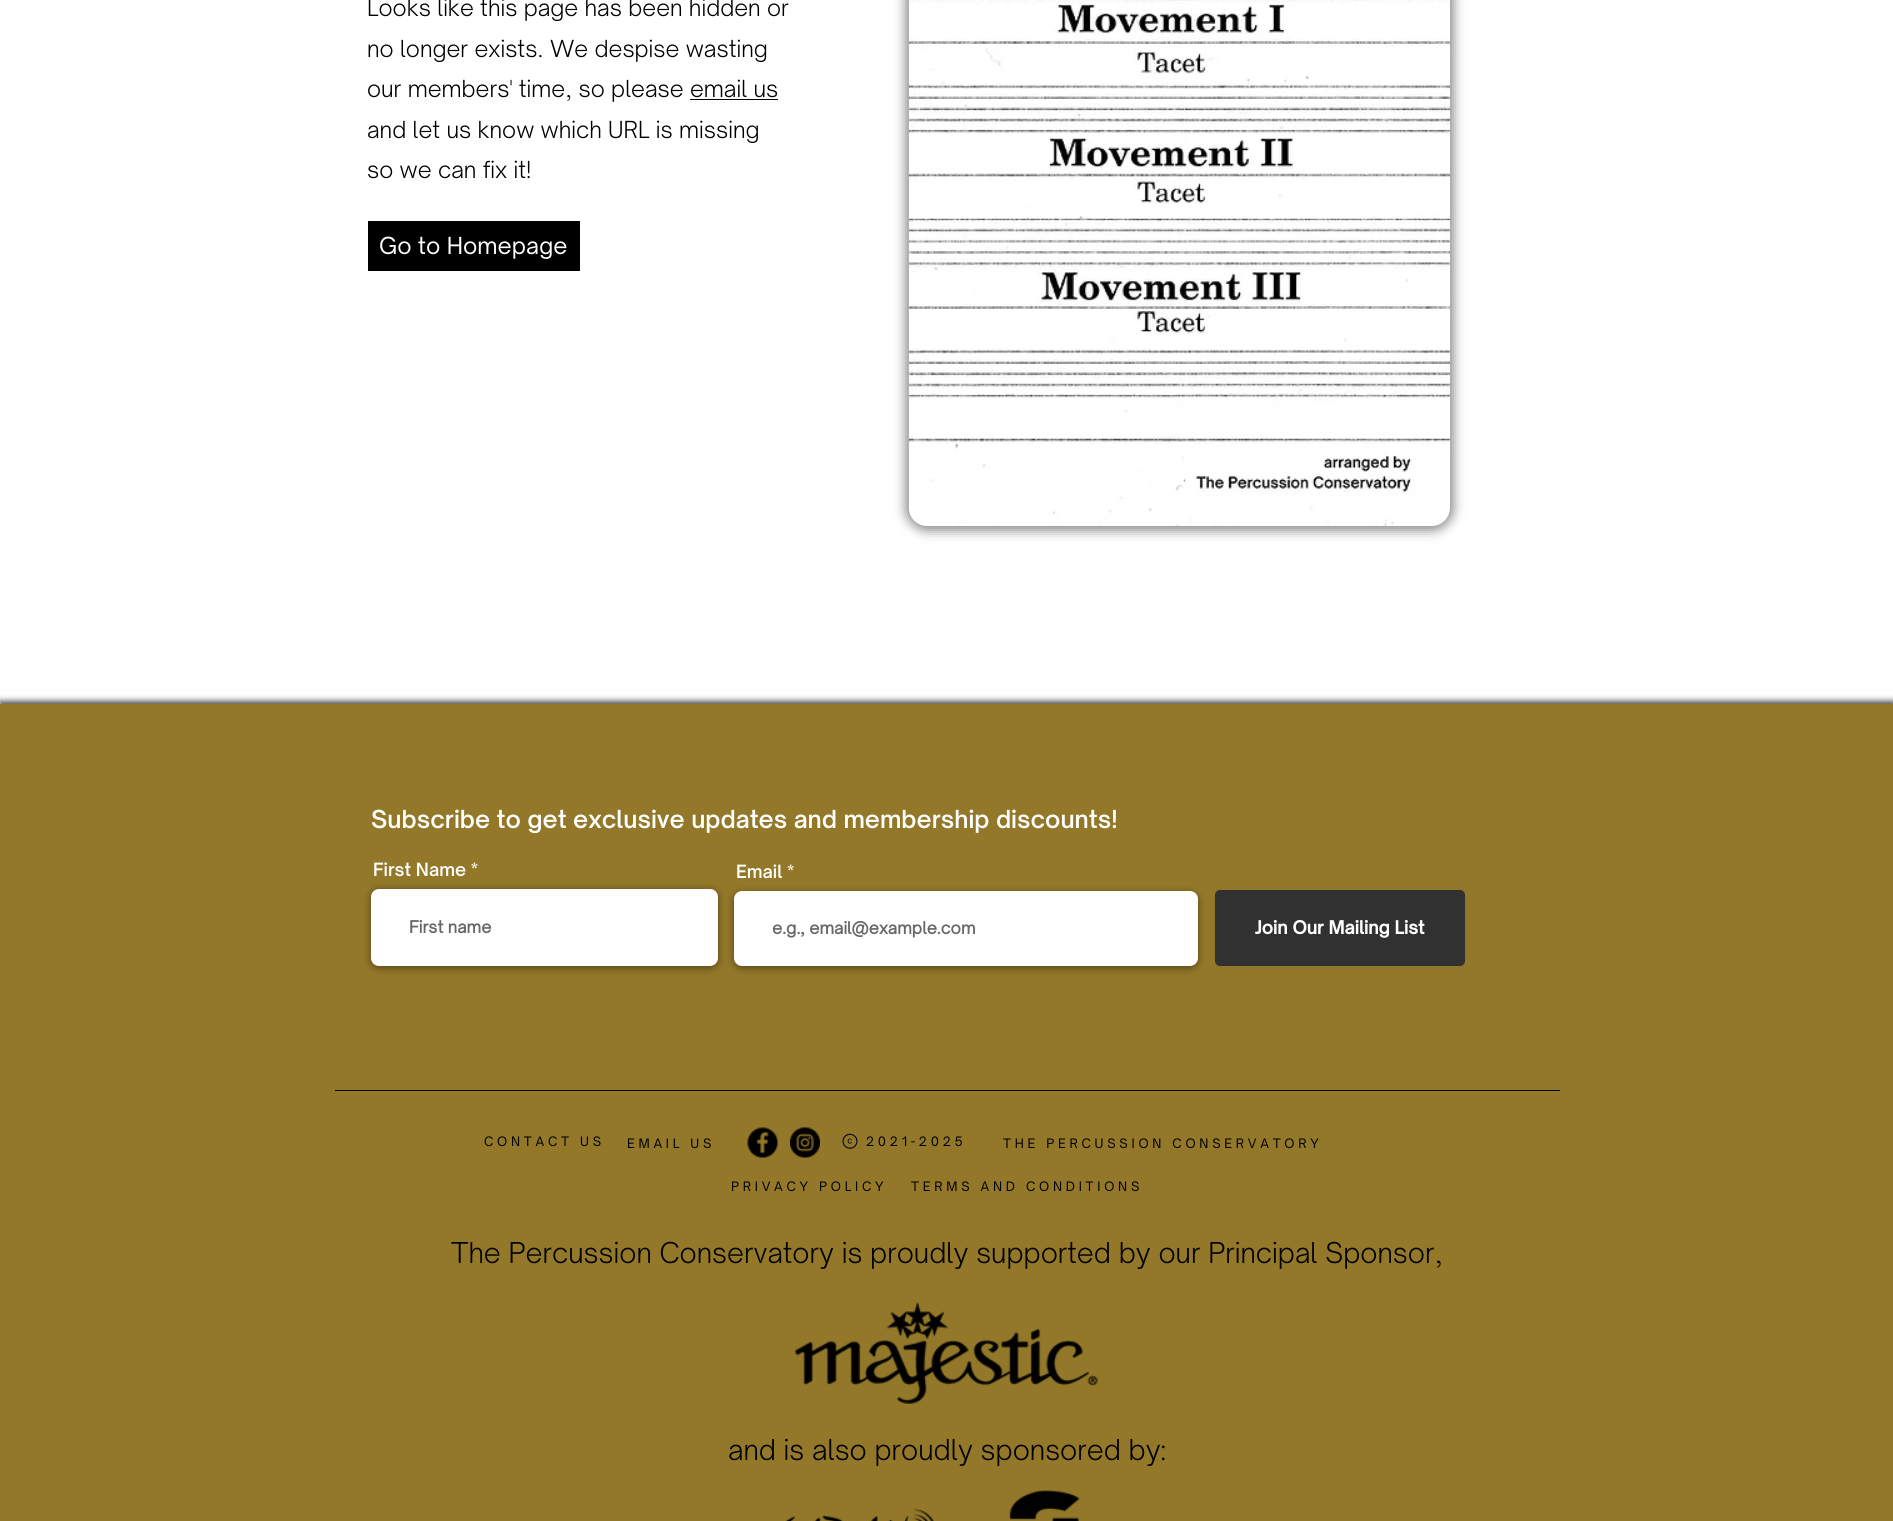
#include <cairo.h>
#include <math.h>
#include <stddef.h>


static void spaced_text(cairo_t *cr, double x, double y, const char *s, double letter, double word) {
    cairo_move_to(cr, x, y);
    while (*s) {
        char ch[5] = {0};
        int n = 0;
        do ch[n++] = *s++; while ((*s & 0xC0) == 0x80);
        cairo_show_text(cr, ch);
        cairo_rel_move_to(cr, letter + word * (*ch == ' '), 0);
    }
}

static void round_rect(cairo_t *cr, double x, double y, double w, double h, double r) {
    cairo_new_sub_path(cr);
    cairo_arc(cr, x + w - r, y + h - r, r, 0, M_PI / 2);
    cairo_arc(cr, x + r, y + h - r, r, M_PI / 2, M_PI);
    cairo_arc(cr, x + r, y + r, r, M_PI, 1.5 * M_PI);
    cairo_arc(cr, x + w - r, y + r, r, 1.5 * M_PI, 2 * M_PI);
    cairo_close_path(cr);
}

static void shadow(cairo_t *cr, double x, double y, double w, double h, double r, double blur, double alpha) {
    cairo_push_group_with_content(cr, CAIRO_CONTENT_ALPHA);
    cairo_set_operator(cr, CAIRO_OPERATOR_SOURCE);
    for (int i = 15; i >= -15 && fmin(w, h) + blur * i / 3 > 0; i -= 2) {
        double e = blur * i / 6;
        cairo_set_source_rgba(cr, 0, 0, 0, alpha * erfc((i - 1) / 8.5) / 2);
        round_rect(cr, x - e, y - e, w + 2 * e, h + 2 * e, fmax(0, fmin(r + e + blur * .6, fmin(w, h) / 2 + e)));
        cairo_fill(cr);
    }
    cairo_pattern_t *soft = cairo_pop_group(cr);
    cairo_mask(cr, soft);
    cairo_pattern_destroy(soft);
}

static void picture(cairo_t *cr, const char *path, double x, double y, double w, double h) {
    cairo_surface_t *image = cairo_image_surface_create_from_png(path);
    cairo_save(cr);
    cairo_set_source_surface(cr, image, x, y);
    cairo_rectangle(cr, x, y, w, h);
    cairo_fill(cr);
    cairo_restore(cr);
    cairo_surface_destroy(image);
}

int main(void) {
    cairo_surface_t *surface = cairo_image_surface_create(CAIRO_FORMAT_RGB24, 1893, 1521);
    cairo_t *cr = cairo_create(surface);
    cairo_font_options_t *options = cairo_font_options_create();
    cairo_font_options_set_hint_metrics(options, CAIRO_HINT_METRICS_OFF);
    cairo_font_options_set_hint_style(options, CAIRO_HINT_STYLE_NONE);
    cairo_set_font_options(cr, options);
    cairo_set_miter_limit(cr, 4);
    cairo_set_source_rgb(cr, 1, 1, 1);
    cairo_paint(cr);
    cairo_select_font_face(cr, "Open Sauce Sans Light", CAIRO_FONT_SLANT_NORMAL, CAIRO_FONT_WEIGHT_NORMAL);
    cairo_set_font_size(cr, 22.5);
    cairo_set_source_rgb(cr, 0, 0, 0);
    cairo_move_to(cr, 367, 16);
    cairo_show_text(cr, "Looks like this page has been hidden or");
    cairo_move_to(cr, 367, 57);
    cairo_show_text(cr, "no longer exists. We despise wasting");
    cairo_move_to(cr, 367, 97);
    cairo_show_text(cr, "our members' time, so please email us");
    cairo_rectangle(cr, 690, 99, 88, 1);
    cairo_fill(cr);
    cairo_move_to(cr, 367, 138);
    cairo_show_text(cr, "and let us know which URL is missing");
    cairo_move_to(cr, 367, 178);
    cairo_show_text(cr, "so we can fix it!");
    cairo_set_source_rgb(cr, 0, 0, 0);
    shadow(cr, 906, -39, 547, 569, 21, 6, 0.5);
    picture(cr, "img1.png", 908, 0, 542, 527);
    cairo_set_source_rgb(cr, 0, 0, 0);
    cairo_rectangle(cr, 368, 221, 212, 50);
    cairo_fill(cr);
    cairo_select_font_face(cr, "Open Sauce Sans", CAIRO_FONT_SLANT_NORMAL, CAIRO_FONT_WEIGHT_NORMAL);
    cairo_set_source_rgb(cr, 1, 1, 1);
    cairo_move_to(cr, 379, 254);
    cairo_show_text(cr, "Go to Homepage");
    cairo_set_source_rgb(cr, 0, 0, 0);
    shadow(cr, 0, 701, 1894, 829, 0, 3, 0.7);
    cairo_set_source_rgb(cr, 0.576, 0.471, 0.161);
    cairo_rectangle(cr, 0, 704, 1893, 817);
    cairo_fill(cr);
    cairo_select_font_face(cr, "Open Sauce Sans SemiBold", CAIRO_FONT_SLANT_NORMAL, CAIRO_FONT_WEIGHT_NORMAL);
    cairo_set_font_size(cr, 23.75);
    cairo_set_source_rgb(cr, 1, 1, 1);
    cairo_move_to(cr, 371, 828);
    cairo_show_text(cr, "Subscribe to get exclusive updates and membership discounts!");
    cairo_set_font_size(cr, 17.5);
    cairo_move_to(cr, 373, 876);
    cairo_show_text(cr, "First Name *");
    cairo_set_source_rgb(cr, 0, 0, 0);
    shadow(cr, 371, 890, 347, 78, 8, 4, 0.44);
    cairo_set_source_rgb(cr, 1, 1, 1);
    round_rect(cr, 371, 889, 347, 77, 8);
    cairo_fill(cr);
    cairo_select_font_face(cr, "Open Sauce Sans", CAIRO_FONT_SLANT_NORMAL, CAIRO_FONT_WEIGHT_BOLD);
    cairo_set_font_size(cr, 16.25);
    cairo_set_source_rgb(cr, 0.404, 0.404, 0.404);
    cairo_move_to(cr, 409, 933);
    cairo_show_text(cr, "First name");
    cairo_select_font_face(cr, "Open Sauce Sans SemiBold", CAIRO_FONT_SLANT_NORMAL, CAIRO_FONT_WEIGHT_NORMAL);
    cairo_set_font_size(cr, 17.5);
    cairo_set_source_rgb(cr, 1, 1, 1);
    cairo_move_to(cr, 736, 878);
    cairo_show_text(cr, "Email *");
    cairo_set_source_rgb(cr, 0, 0, 0);
    shadow(cr, 734, 893, 464, 75, 8, 4, 0.44);
    cairo_set_source_rgb(cr, 1, 1, 1);
    round_rect(cr, 734, 891, 464, 75, 8);
    cairo_fill(cr);
    cairo_save(cr);
    cairo_rectangle(cr, 773, 919, 420, 20);
    cairo_clip(cr);
    cairo_select_font_face(cr, "Open Sauce Sans", CAIRO_FONT_SLANT_NORMAL, CAIRO_FONT_WEIGHT_BOLD);
    cairo_set_font_size(cr, 16.25);
    cairo_set_source_rgb(cr, 0.404, 0.404, 0.404);
    cairo_move_to(cr, 772, 934);
    cairo_show_text(cr, "e.g., email@example.com");
    cairo_restore(cr);
    cairo_set_source_rgb(cr, 0.192, 0.192, 0.192);
    round_rect(cr, 1215, 890, 250, 76, 5);
    cairo_fill(cr);
    cairo_select_font_face(cr, "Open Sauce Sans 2", CAIRO_FONT_SLANT_NORMAL, CAIRO_FONT_WEIGHT_BOLD);
    cairo_set_source_rgb(cr, 1, 1, 1);
    cairo_move_to(cr, 1255, 934);
    cairo_show_text(cr, "Join Our Mailing List");
    cairo_set_source_rgb(cr, 0, 0, 0);
    cairo_rectangle(cr, 335, 1090, 1225, 1);
    cairo_fill(cr);
    cairo_select_font_face(cr, "Open Sauce Sans", CAIRO_FONT_SLANT_NORMAL, CAIRO_FONT_WEIGHT_NORMAL);
    cairo_set_font_size(cr, 12.5);
    spaced_text(cr, 484, 1146, "CONTACT US", 3.75, 0);
    spaced_text(cr, 627, 1148, "EMAIL US", 3.75, 0);
    picture(cr, "img2.png", 747, 1127, 31, 31);
    picture(cr, "img3.png", 790, 1127, 30, 31);
    picture(cr, "img4.png", 842, 1133, 16, 16);
    spaced_text(cr, 866, 1146, "2021-2025", 3.75, 0);
    spaced_text(cr, 1003, 1148, "THE PERCUSSION CONSERVATORY", 3.75, 0);
    spaced_text(cr, 731, 1191, "PRIVACY POLICY", 3.75, 0);
    spaced_text(cr, 911, 1191, "TERMS AND CONDITIONS", 3.75, 0);
    cairo_select_font_face(cr, "Open Sauce Sans Light", CAIRO_FONT_SLANT_NORMAL, CAIRO_FONT_WEIGHT_NORMAL);
    cairo_set_font_size(cr, 27.5);
    cairo_move_to(cr, 451, 1263);
    cairo_show_text(cr, "The Percussion Conservatory is proudly supported by our Principal Sponsor,");
    picture(cr, "img5.png", 794, 1302, 304, 102);
    cairo_move_to(cr, 728, 1460);
    cairo_show_text(cr, "and is also proudly sponsored by:");
    picture(cr, "img6.png", 786, 1508, 148, 13);
    picture(cr, "img7.png", 1009, 1490, 71, 31);
    cairo_surface_write_to_png(surface, "page.png");
    cairo_font_options_destroy(options);
    cairo_destroy(cr);
    cairo_surface_destroy(surface);
    return 0;
}
